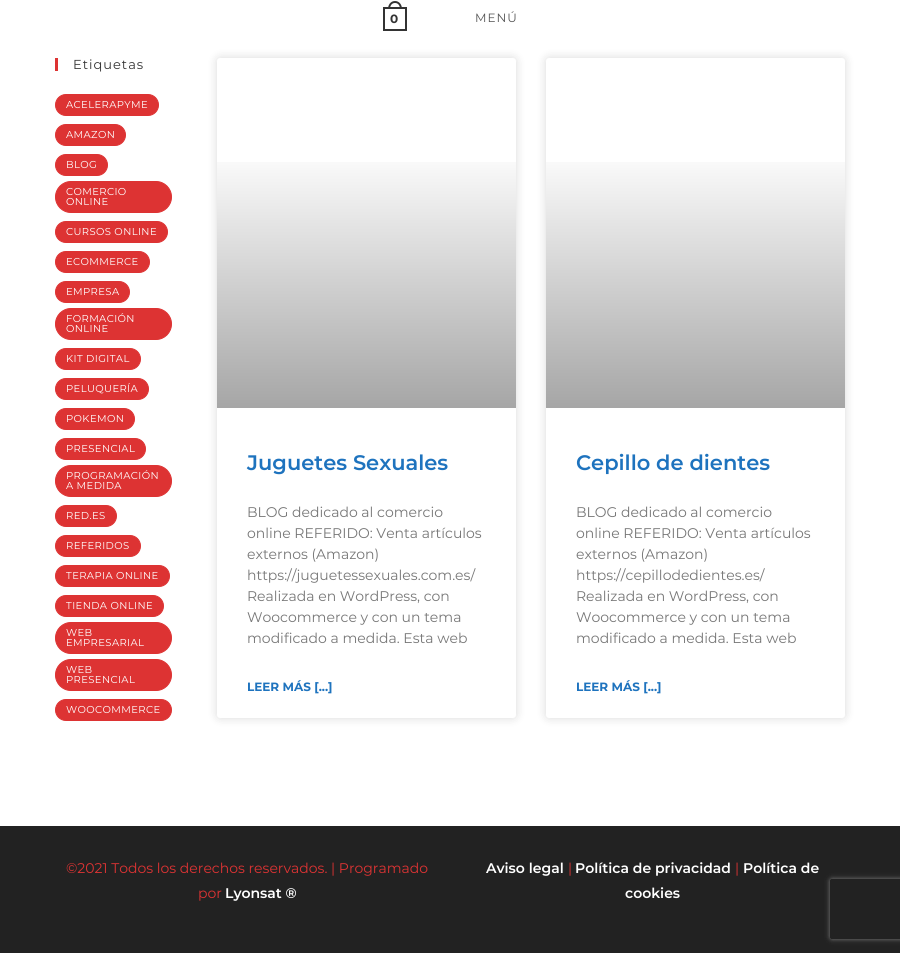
#include <cairo.h>
#include <math.h>
#include <stddef.h>


static void spaced_text(cairo_t *cr, double x, double y, const char *s, double letter, double word) {
    cairo_move_to(cr, x, y);
    while (*s) {
        char ch[5] = {0};
        int n = 0;
        do ch[n++] = *s++; while ((*s & 0xC0) == 0x80);
        cairo_show_text(cr, ch);
        cairo_rel_move_to(cr, letter + word * (*ch == ' '), 0);
    }
}

static void round_rect(cairo_t *cr, double x, double y, double w, double h, double r) {
    cairo_new_sub_path(cr);
    cairo_arc(cr, x + w - r, y + h - r, r, 0, M_PI / 2);
    cairo_arc(cr, x + r, y + h - r, r, M_PI / 2, M_PI);
    cairo_arc(cr, x + r, y + r, r, M_PI, 1.5 * M_PI);
    cairo_arc(cr, x + w - r, y + r, r, 1.5 * M_PI, 2 * M_PI);
    cairo_close_path(cr);
}

static void shadow(cairo_t *cr, double x, double y, double w, double h, double r, double blur, double alpha) {
    cairo_push_group_with_content(cr, CAIRO_CONTENT_ALPHA);
    cairo_set_operator(cr, CAIRO_OPERATOR_SOURCE);
    for (int i = 15; i >= -15 && fmin(w, h) + blur * i / 3 > 0; i -= 2) {
        double e = blur * i / 6;
        cairo_set_source_rgba(cr, 0, 0, 0, alpha * erfc((i - 1) / 8.5) / 2);
        round_rect(cr, x - e, y - e, w + 2 * e, h + 2 * e, fmax(0, fmin(r + e + blur * .6, fmin(w, h) / 2 + e)));
        cairo_fill(cr);
    }
    cairo_pattern_t *soft = cairo_pop_group(cr);
    cairo_mask(cr, soft);
    cairo_pattern_destroy(soft);
}

int main(void) {
    cairo_surface_t *surface = cairo_image_surface_create(CAIRO_FORMAT_RGB24, 900, 953);
    cairo_t *cr = cairo_create(surface);
    cairo_font_options_t *options = cairo_font_options_create();
    cairo_font_options_set_hint_metrics(options, CAIRO_HINT_METRICS_OFF);
    cairo_font_options_set_hint_style(options, CAIRO_HINT_STYLE_NONE);
    cairo_set_font_options(cr, options);
    cairo_set_miter_limit(cr, 4);
    cairo_pattern_t *gradient;
    cairo_set_source_rgb(cr, 1, 1, 1);
    cairo_paint(cr);
    cairo_rectangle(cr, 384, 8, 22, 22);
    cairo_set_source_rgb(cr, 0.2, 0.2, 0.2);
    cairo_stroke(cr);
    cairo_set_fill_rule(cr, CAIRO_FILL_RULE_EVEN_ODD);
    cairo_new_path(cr);
    cairo_move_to(cr, 395, 1);
    cairo_curve_to(cr, 399.5, 1, 402, 5, 402, 9);
    cairo_line_to(cr, 388, 9);
    cairo_curve_to(cr, 388, 5, 390.5, 1, 395, 1);
    cairo_close_path(cr);
    cairo_move_to(cr, 395, 3);
    cairo_curve_to(cr, 398.5, 3, 400, 6, 400, 9);
    cairo_line_to(cr, 390, 9);
    cairo_curve_to(cr, 390, 6, 391.5, 3, 395, 3);
    cairo_close_path(cr);
    cairo_fill(cr);
    cairo_select_font_face(cr, "Montserrat", CAIRO_FONT_SLANT_NORMAL, CAIRO_FONT_WEIGHT_BOLD);
    cairo_set_font_size(cr, 12);
    spaced_text(cr, 390, 23, "0", 1, 0);
    cairo_select_font_face(cr, "Montserrat", CAIRO_FONT_SLANT_NORMAL, CAIRO_FONT_WEIGHT_NORMAL);
    cairo_set_source_rgb(cr, 0.333, 0.333, 0.333);
    spaced_text(cr, 475, 22, "MENÚ", 1, 0);
    cairo_set_source_rgb(cr, 0.867, 0.2, 0.2);
    cairo_rectangle(cr, 55, 58, 3, 13);
    cairo_fill(cr);
    cairo_set_font_size(cr, 13);
    cairo_set_source_rgb(cr, 0.2, 0.2, 0.2);
    spaced_text(cr, 73, 69, "Etiquetas", 1, 0);
    cairo_set_source_rgb(cr, 0.867, 0.2, 0.2);
    round_rect(cr, 55.5, 94.5, 103, 21, 10.5);
    cairo_fill_preserve(cr);
    cairo_set_line_width(cr, 1);
    cairo_stroke(cr);
    cairo_set_font_size(cr, 10);
    cairo_set_source_rgb(cr, 1, 1, 1);
    spaced_text(cr, 66, 108, "ACELERAPYME", 0.4, 0);
    cairo_set_source_rgb(cr, 0.867, 0.2, 0.2);
    round_rect(cr, 55.5, 124.5, 70, 21, 10.5);
    cairo_fill_preserve(cr);
    cairo_stroke(cr);
    cairo_set_source_rgb(cr, 1, 1, 1);
    spaced_text(cr, 66, 138, "AMAZON", 0.4, 0);
    cairo_set_source_rgb(cr, 0.867, 0.2, 0.2);
    round_rect(cr, 55.5, 154.5, 52, 21, 10.5);
    cairo_fill_preserve(cr);
    cairo_stroke(cr);
    cairo_set_source_rgb(cr, 1, 1, 1);
    spaced_text(cr, 66, 168, "BLOG", 0.4, 0);
    cairo_set_source_rgb(cr, 0.867, 0.2, 0.2);
    round_rect(cr, 55.5, 181.5, 116, 31, 15.5);
    cairo_fill_preserve(cr);
    cairo_stroke(cr);
    cairo_set_source_rgb(cr, 1, 1, 1);
    spaced_text(cr, 66, 195, "COMERCIO", 0.4, 0);
    spaced_text(cr, 66, 205, "ONLINE", 0.4, 0);
    cairo_set_source_rgb(cr, 0.867, 0.2, 0.2);
    round_rect(cr, 55.5, 221.5, 112, 21, 10.5);
    cairo_fill_preserve(cr);
    cairo_stroke(cr);
    cairo_set_source_rgb(cr, 1, 1, 1);
    spaced_text(cr, 66, 235, "CURSOS ONLINE", 0.4, 0);
    cairo_set_source_rgb(cr, 0.867, 0.2, 0.2);
    round_rect(cr, 55.5, 251.5, 94, 21, 10.5);
    cairo_fill_preserve(cr);
    cairo_stroke(cr);
    cairo_set_source_rgb(cr, 1, 1, 1);
    spaced_text(cr, 66, 265, "ECOMMERCE", 0.4, 0);
    cairo_set_source_rgb(cr, 0.867, 0.2, 0.2);
    round_rect(cr, 55.5, 281.5, 74, 21, 10.5);
    cairo_fill_preserve(cr);
    cairo_stroke(cr);
    cairo_set_source_rgb(cr, 1, 1, 1);
    spaced_text(cr, 66, 295, "EMPRESA", 0.4, 0);
    cairo_set_source_rgb(cr, 0.867, 0.2, 0.2);
    round_rect(cr, 55.5, 308.5, 116, 31, 15.5);
    cairo_fill_preserve(cr);
    cairo_stroke(cr);
    cairo_set_source_rgb(cr, 1, 1, 1);
    spaced_text(cr, 66, 322, "FORMACIÓN", 0.4, 0);
    spaced_text(cr, 66, 332, "ONLINE", 0.4, 0);
    cairo_set_source_rgb(cr, 0.867, 0.2, 0.2);
    round_rect(cr, 55.5, 348.5, 85, 21, 10.5);
    cairo_fill_preserve(cr);
    cairo_stroke(cr);
    cairo_set_source_rgb(cr, 1, 1, 1);
    spaced_text(cr, 66, 362, "KIT DIGITAL", 0.4, 0);
    cairo_set_source_rgb(cr, 0.867, 0.2, 0.2);
    round_rect(cr, 55.5, 378.5, 93, 21, 10.5);
    cairo_fill_preserve(cr);
    cairo_stroke(cr);
    cairo_set_source_rgb(cr, 1, 1, 1);
    spaced_text(cr, 66, 392, "PELUQUERÍA", 0.4, 0);
    cairo_set_source_rgb(cr, 0.867, 0.2, 0.2);
    round_rect(cr, 55.5, 408.5, 79, 21, 10.5);
    cairo_fill_preserve(cr);
    cairo_stroke(cr);
    cairo_set_source_rgb(cr, 1, 1, 1);
    spaced_text(cr, 66, 422, "POKEMON", 0.4, 0);
    cairo_set_source_rgb(cr, 0.867, 0.2, 0.2);
    round_rect(cr, 55.5, 438.5, 90, 21, 10.5);
    cairo_fill_preserve(cr);
    cairo_stroke(cr);
    cairo_set_source_rgb(cr, 1, 1, 1);
    spaced_text(cr, 66, 452, "PRESENCIAL", 0.4, 0);
    cairo_set_source_rgb(cr, 0.867, 0.2, 0.2);
    round_rect(cr, 55.5, 465.5, 116, 31, 15.5);
    cairo_fill_preserve(cr);
    cairo_stroke(cr);
    cairo_set_source_rgb(cr, 1, 1, 1);
    spaced_text(cr, 66, 479, "PROGRAMACIÓN", 0.4, 0);
    spaced_text(cr, 66, 489, "A MEDIDA", 0.4, 0);
    cairo_set_source_rgb(cr, 0.867, 0.2, 0.2);
    round_rect(cr, 55.5, 505.5, 61, 21, 10.5);
    cairo_fill_preserve(cr);
    cairo_stroke(cr);
    cairo_set_source_rgb(cr, 1, 1, 1);
    spaced_text(cr, 66, 519, "RED.ES", 0.4, 0);
    cairo_set_source_rgb(cr, 0.867, 0.2, 0.2);
    round_rect(cr, 55.5, 535.5, 85, 21, 10.5);
    cairo_fill_preserve(cr);
    cairo_stroke(cr);
    cairo_set_source_rgb(cr, 1, 1, 1);
    spaced_text(cr, 66, 549, "REFERIDOS", 0.4, 0);
    cairo_set_source_rgb(cr, 0.867, 0.2, 0.2);
    round_rect(cr, 55.5, 565.5, 114, 21, 10.5);
    cairo_fill_preserve(cr);
    cairo_stroke(cr);
    cairo_set_source_rgb(cr, 1, 1, 1);
    spaced_text(cr, 66, 579, "TERAPIA ONLINE", 0.4, 0);
    cairo_set_source_rgb(cr, 0.867, 0.2, 0.2);
    round_rect(cr, 55.5, 595.5, 108, 21, 10.5);
    cairo_fill_preserve(cr);
    cairo_stroke(cr);
    cairo_set_source_rgb(cr, 1, 1, 1);
    spaced_text(cr, 66, 609, "TIENDA ONLINE", 0.4, 0);
    cairo_set_source_rgb(cr, 0.867, 0.2, 0.2);
    round_rect(cr, 55.5, 622.5, 116, 31, 15.5);
    cairo_fill_preserve(cr);
    cairo_stroke(cr);
    cairo_set_source_rgb(cr, 1, 1, 1);
    spaced_text(cr, 66, 636, "WEB", 0.4, 0);
    spaced_text(cr, 66, 646, "EMPRESARIAL", 0.4, 0);
    cairo_set_source_rgb(cr, 0.867, 0.2, 0.2);
    round_rect(cr, 55.5, 659.5, 116, 31, 15.5);
    cairo_fill_preserve(cr);
    cairo_stroke(cr);
    cairo_set_source_rgb(cr, 1, 1, 1);
    spaced_text(cr, 66, 673, "WEB", 0.4, 0);
    spaced_text(cr, 66, 683, "PRESENCIAL", 0.4, 0);
    cairo_set_source_rgb(cr, 0.867, 0.2, 0.2);
    round_rect(cr, 55.5, 699.5, 116, 21, 10.5);
    cairo_fill_preserve(cr);
    cairo_stroke(cr);
    cairo_set_source_rgb(cr, 1, 1, 1);
    spaced_text(cr, 66, 713, "WOOCOMMERCE", 0.4, 0);
    cairo_set_source_rgb(cr, 0, 0, 0);
    shadow(cr, 217, 58, 299, 660, 3, 5, 0.15);
    cairo_set_source_rgb(cr, 1, 1, 1);
    round_rect(cr, 217, 58, 299, 660, 3);
    cairo_fill(cr);
    gradient = cairo_pattern_create_linear(367, 408, 367, 58);
    cairo_pattern_add_color_stop_rgba(gradient, 0, 0, 0, 0, 0.35);
    cairo_pattern_add_color_stop_rgba(gradient, 0.75, 0, 0, 0, 0);
    cairo_set_source(cr, gradient);
    cairo_pattern_destroy(gradient);
    cairo_rectangle(cr, 217, 162, 299, 246);
    cairo_fill(cr);
    cairo_select_font_face(cr, "Montserrat SemiBold", CAIRO_FONT_SLANT_NORMAL, CAIRO_FONT_WEIGHT_NORMAL);
    cairo_set_font_size(cr, 21);
    cairo_set_source_rgb(cr, 0.118, 0.451, 0.745);
    cairo_move_to(cr, 247, 470);
    cairo_show_text(cr, "Juguetes Sexuales");
    cairo_select_font_face(cr, "Montserrat", CAIRO_FONT_SLANT_NORMAL, CAIRO_FONT_WEIGHT_NORMAL);
    cairo_set_font_size(cr, 14);
    cairo_set_source_rgb(cr, 0.467, 0.467, 0.467);
    cairo_move_to(cr, 247, 517);
    cairo_show_text(cr, "BLOG dedicado al comercio");
    cairo_move_to(cr, 247, 538);
    cairo_show_text(cr, "online REFERIDO: Venta artículos");
    cairo_move_to(cr, 247, 559);
    cairo_show_text(cr, "externos (Amazon)");
    cairo_move_to(cr, 247, 580);
    cairo_show_text(cr, "https://juguetessexuales.com.es/");
    cairo_move_to(cr, 247, 601);
    cairo_show_text(cr, "Realizada en WordPress, con");
    cairo_move_to(cr, 247, 622);
    cairo_show_text(cr, "Woocommerce y con un tema");
    cairo_move_to(cr, 247, 643);
    cairo_show_text(cr, "modificado a medida. Esta web");
    cairo_select_font_face(cr, "Montserrat", CAIRO_FONT_SLANT_NORMAL, CAIRO_FONT_WEIGHT_BOLD);
    cairo_set_font_size(cr, 12);
    cairo_set_source_rgb(cr, 0.118, 0.451, 0.745);
    cairo_move_to(cr, 247, 691);
    cairo_show_text(cr, "LEER MÁS [...]");
    cairo_set_source_rgb(cr, 0, 0, 0);
    shadow(cr, 546, 58, 299, 660, 3, 5, 0.15);
    cairo_set_source_rgb(cr, 1, 1, 1);
    round_rect(cr, 546, 58, 299, 660, 3);
    cairo_fill(cr);
    gradient = cairo_pattern_create_linear(696, 408, 696, 58);
    cairo_pattern_add_color_stop_rgba(gradient, 0, 0, 0, 0, 0.35);
    cairo_pattern_add_color_stop_rgba(gradient, 0.75, 0, 0, 0, 0);
    cairo_set_source(cr, gradient);
    cairo_pattern_destroy(gradient);
    cairo_rectangle(cr, 546, 162, 299, 246);
    cairo_fill(cr);
    cairo_select_font_face(cr, "Montserrat SemiBold", CAIRO_FONT_SLANT_NORMAL, CAIRO_FONT_WEIGHT_NORMAL);
    cairo_set_font_size(cr, 21);
    cairo_set_source_rgb(cr, 0.118, 0.451, 0.745);
    cairo_move_to(cr, 576, 470);
    cairo_show_text(cr, "Cepillo de dientes");
    cairo_select_font_face(cr, "Montserrat", CAIRO_FONT_SLANT_NORMAL, CAIRO_FONT_WEIGHT_NORMAL);
    cairo_set_font_size(cr, 14);
    cairo_set_source_rgb(cr, 0.467, 0.467, 0.467);
    cairo_move_to(cr, 576, 517);
    cairo_show_text(cr, "BLOG dedicado al comercio");
    cairo_move_to(cr, 576, 538);
    cairo_show_text(cr, "online REFERIDO: Venta artículos");
    cairo_move_to(cr, 576, 559);
    cairo_show_text(cr, "externos (Amazon)");
    cairo_move_to(cr, 576, 580);
    cairo_show_text(cr, "https://cepillodedientes.es/");
    cairo_move_to(cr, 576, 601);
    cairo_show_text(cr, "Realizada en WordPress, con");
    cairo_move_to(cr, 576, 622);
    cairo_show_text(cr, "Woocommerce y con un tema");
    cairo_move_to(cr, 576, 643);
    cairo_show_text(cr, "modificado a medida. Esta web");
    cairo_select_font_face(cr, "Montserrat", CAIRO_FONT_SLANT_NORMAL, CAIRO_FONT_WEIGHT_BOLD);
    cairo_set_font_size(cr, 12);
    cairo_set_source_rgb(cr, 0.118, 0.451, 0.745);
    cairo_move_to(cr, 576, 691);
    cairo_show_text(cr, "LEER MÁS [...]");
    cairo_set_source_rgb(cr, 0.133, 0.133, 0.133);
    cairo_rectangle(cr, 0, 826, 900, 127);
    cairo_fill(cr);
    cairo_select_font_face(cr, "Montserrat", CAIRO_FONT_SLANT_NORMAL, CAIRO_FONT_WEIGHT_NORMAL);
    cairo_set_font_size(cr, 14);
    cairo_set_source_rgb(cr, 0.867, 0.2, 0.2);
    cairo_move_to(cr, 66, 873);
    cairo_show_text(cr, "©2021 Todos los derechos reservados. | Programado");
    cairo_move_to(cr, 198, 898);
    cairo_show_text(cr, "por");
    cairo_select_font_face(cr, "Montserrat SemiBold", CAIRO_FONT_SLANT_NORMAL, CAIRO_FONT_WEIGHT_NORMAL);
    cairo_set_source_rgb(cr, 1, 1, 1);
    cairo_move_to(cr, 225, 898);
    cairo_show_text(cr, "Lyonsat ®");
    cairo_move_to(cr, 486, 873);
    cairo_show_text(cr, "Aviso legal");
    cairo_select_font_face(cr, "Montserrat", CAIRO_FONT_SLANT_NORMAL, CAIRO_FONT_WEIGHT_NORMAL);
    cairo_set_source_rgb(cr, 0.867, 0.2, 0.2);
    cairo_move_to(cr, 568, 873);
    cairo_show_text(cr, "|");
    cairo_select_font_face(cr, "Montserrat SemiBold", CAIRO_FONT_SLANT_NORMAL, CAIRO_FONT_WEIGHT_NORMAL);
    cairo_set_source_rgb(cr, 1, 1, 1);
    cairo_move_to(cr, 575, 873);
    cairo_show_text(cr, "Política de privacidad");
    cairo_select_font_face(cr, "Montserrat", CAIRO_FONT_SLANT_NORMAL, CAIRO_FONT_WEIGHT_NORMAL);
    cairo_set_source_rgb(cr, 0.867, 0.2, 0.2);
    cairo_move_to(cr, 735, 873);
    cairo_show_text(cr, "|");
    cairo_select_font_face(cr, "Montserrat SemiBold", CAIRO_FONT_SLANT_NORMAL, CAIRO_FONT_WEIGHT_NORMAL);
    cairo_set_source_rgb(cr, 1, 1, 1);
    cairo_move_to(cr, 743, 873);
    cairo_show_text(cr, "Política de");
    cairo_move_to(cr, 625, 898);
    cairo_show_text(cr, "cookies");
    cairo_save(cr);
    cairo_new_path(cr);
    cairo_move_to(cr, 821, 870);
    cairo_line_to(cr, 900, 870);
    cairo_line_to(cr, 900, 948);
    cairo_line_to(cr, 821, 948);
    cairo_close_path(cr);
    cairo_move_to(cr, 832, 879);
    cairo_line_to(cr, 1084, 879);
    cairo_curve_to(cr, 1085, 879, 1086, 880, 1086, 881);
    cairo_line_to(cr, 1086, 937);
    cairo_curve_to(cr, 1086, 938, 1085, 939, 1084, 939);
    cairo_line_to(cr, 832, 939);
    cairo_curve_to(cr, 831, 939, 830, 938, 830, 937);
    cairo_line_to(cr, 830, 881);
    cairo_curve_to(cr, 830, 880, 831, 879, 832, 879);
    cairo_close_path(cr);
    cairo_clip(cr);
    cairo_set_source_rgb(cr, 0.502, 0.502, 0.502);
    shadow(cr, 830, 879, 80, 60, 2, 2.5, 1);
    cairo_restore(cr);
    cairo_surface_write_to_png(surface, "page.png");
    cairo_font_options_destroy(options);
    cairo_destroy(cr);
    cairo_surface_destroy(surface);
    return 0;
}
